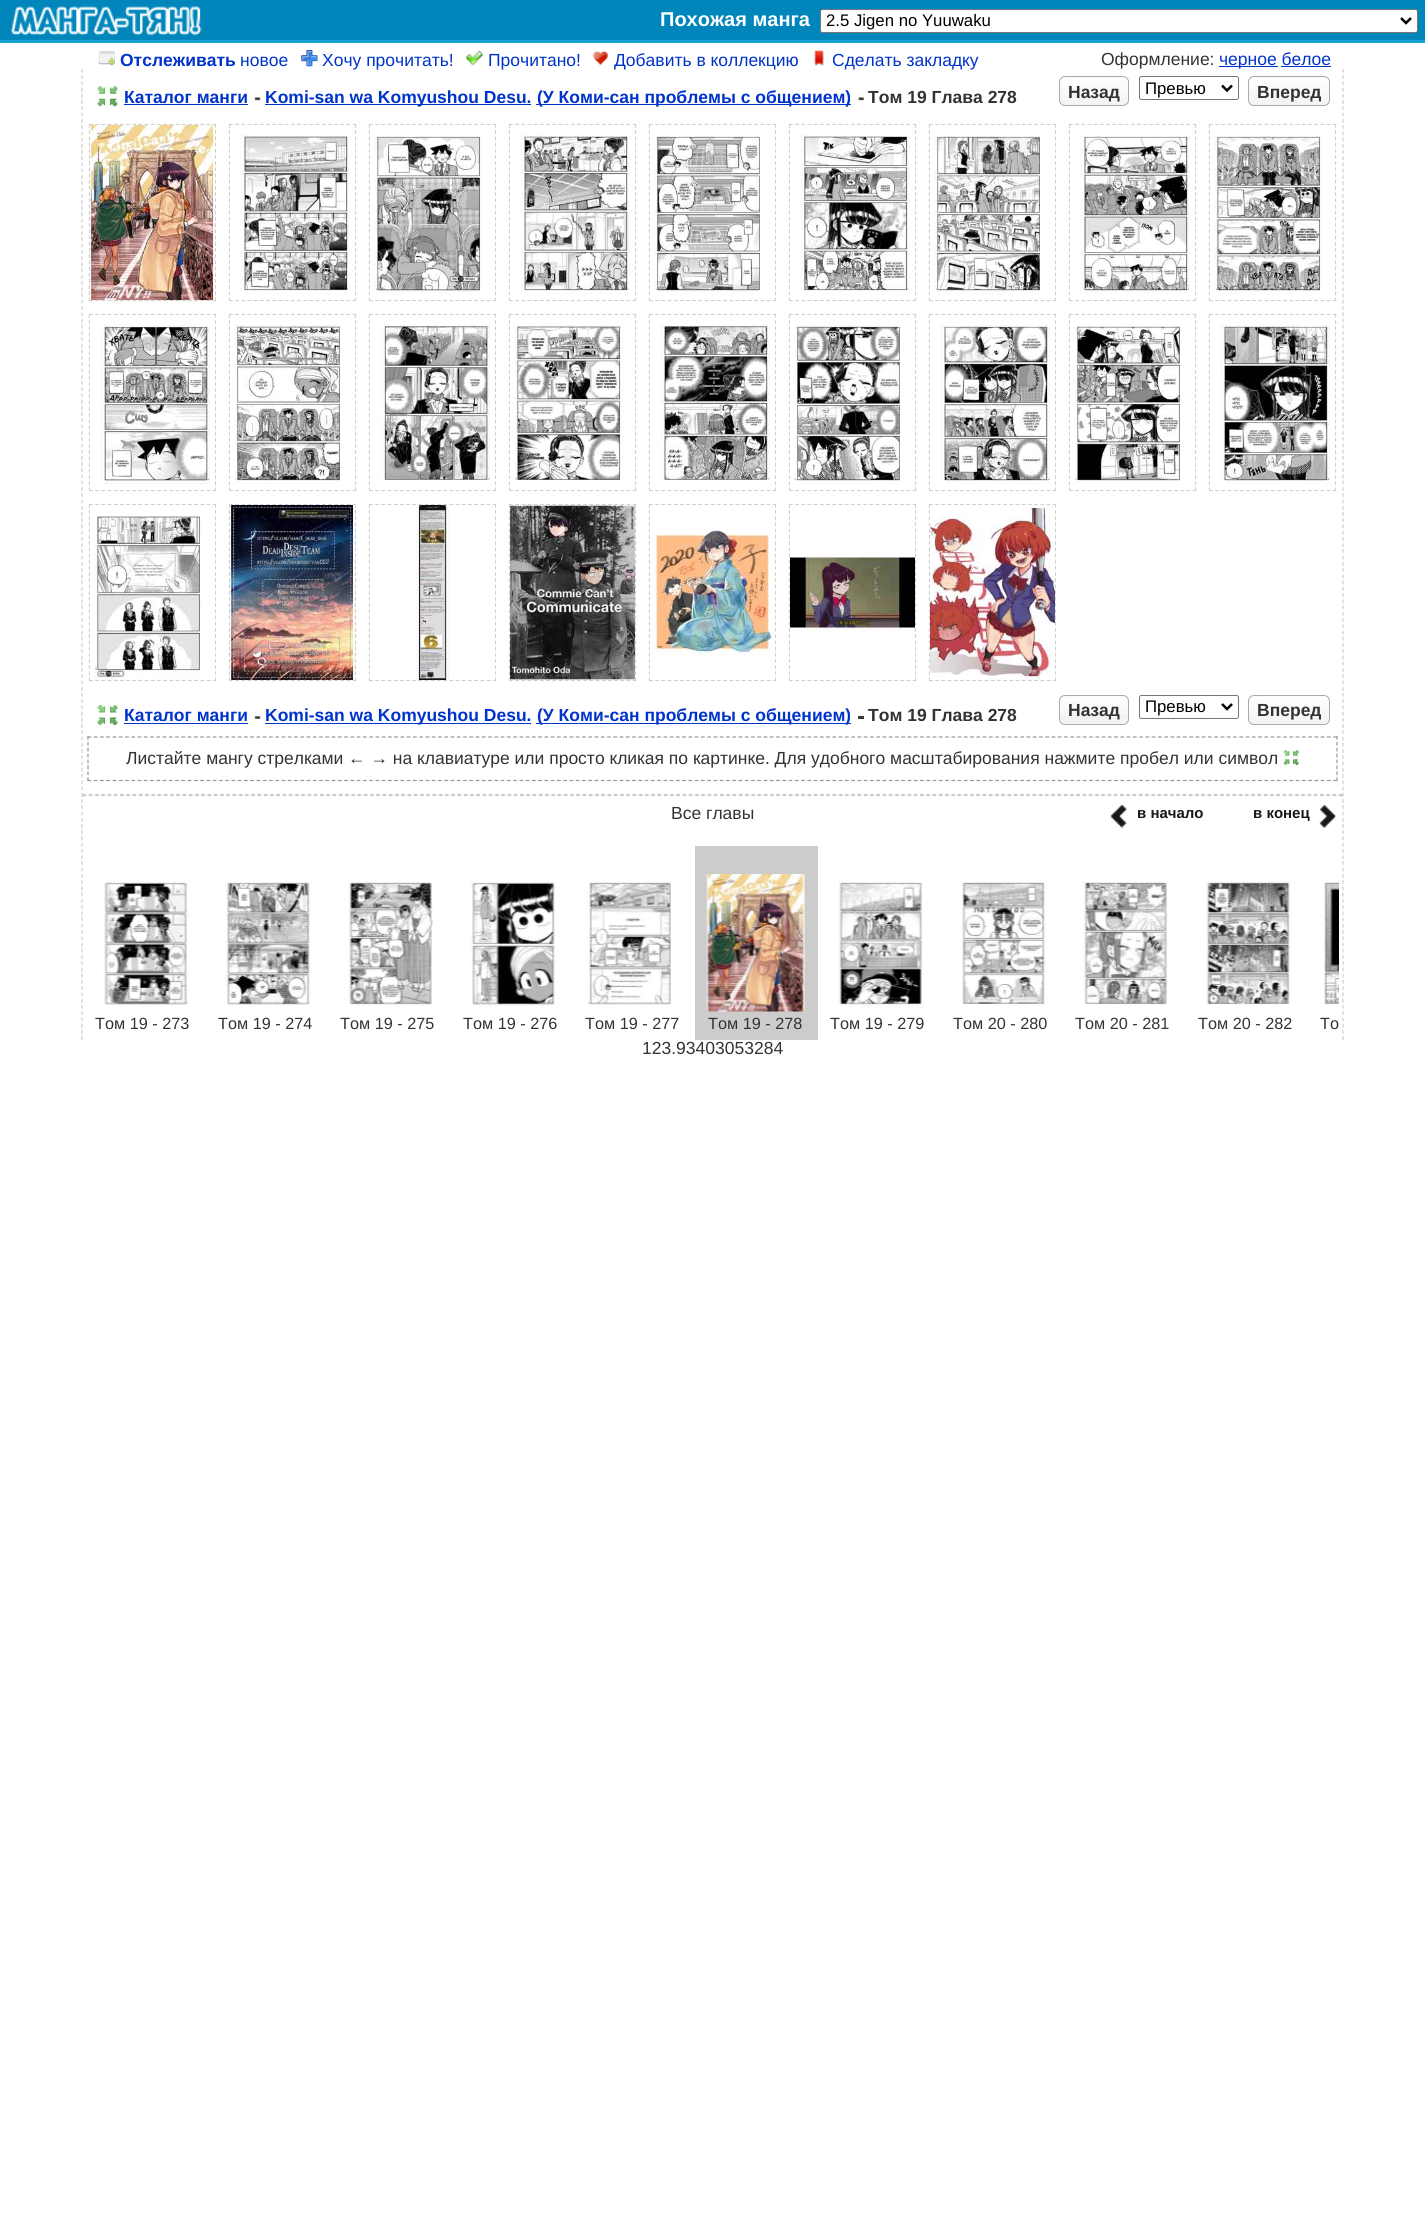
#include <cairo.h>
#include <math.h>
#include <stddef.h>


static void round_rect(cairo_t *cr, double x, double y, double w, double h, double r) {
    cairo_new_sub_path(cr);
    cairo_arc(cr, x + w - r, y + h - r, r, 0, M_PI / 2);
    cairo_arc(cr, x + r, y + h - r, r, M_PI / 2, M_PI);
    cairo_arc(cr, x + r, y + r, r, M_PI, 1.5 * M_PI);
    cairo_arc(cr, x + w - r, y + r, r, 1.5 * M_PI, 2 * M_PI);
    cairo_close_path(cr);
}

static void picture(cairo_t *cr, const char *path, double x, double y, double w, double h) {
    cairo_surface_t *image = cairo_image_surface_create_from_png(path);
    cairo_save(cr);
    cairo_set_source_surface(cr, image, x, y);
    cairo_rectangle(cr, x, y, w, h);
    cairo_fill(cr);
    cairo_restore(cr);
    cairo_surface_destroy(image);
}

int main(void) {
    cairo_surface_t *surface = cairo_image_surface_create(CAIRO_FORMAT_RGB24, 1425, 2224);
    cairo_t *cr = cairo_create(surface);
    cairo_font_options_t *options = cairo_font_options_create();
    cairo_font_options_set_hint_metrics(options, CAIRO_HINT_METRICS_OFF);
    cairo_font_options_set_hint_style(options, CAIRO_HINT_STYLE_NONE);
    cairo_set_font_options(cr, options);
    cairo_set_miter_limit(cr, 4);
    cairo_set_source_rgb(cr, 1, 1, 1);
    cairo_paint(cr);
    cairo_set_source_rgb(cr, 0, 0.525, 0.733);
    cairo_rectangle(cr, 0, 0, 1425, 40);
    cairo_fill(cr);
    cairo_set_source_rgb(cr, 0.098, 0.631, 0.827);
    cairo_rectangle(cr, 0, 40, 1425, 3);
    cairo_fill(cr);
    picture(cr, "img1.png", 11, 6, 191, 30);
    cairo_select_font_face(cr, "Liberation Sans", CAIRO_FONT_SLANT_NORMAL, CAIRO_FONT_WEIGHT_BOLD);
    cairo_set_font_size(cr, 20);
    cairo_set_source_rgb(cr, 1, 1, 1);
    cairo_move_to(cr, 660, 26);
    cairo_show_text(cr, "Похожая манга");
    round_rect(cr, 820.5, 9.5, 597, 23, 2);
    cairo_fill_preserve(cr);
    cairo_set_source_rgb(cr, 0.463, 0.463, 0.463);
    cairo_set_line_width(cr, 1);
    cairo_stroke(cr);
    cairo_new_path(cr);
    cairo_move_to(cr, 1401, 18);
    cairo_line_to(cr, 1406, 23);
    cairo_line_to(cr, 1411, 18);
    cairo_set_source_rgb(cr, 0, 0, 0);
    cairo_set_line_width(cr, 2.5);
    cairo_stroke(cr);
    cairo_select_font_face(cr, "Liberation Sans", CAIRO_FONT_SLANT_NORMAL, CAIRO_FONT_WEIGHT_NORMAL);
    cairo_set_font_size(cr, 16.75);
    cairo_move_to(cr, 826, 26);
    cairo_show_text(cr, "2.5 Jigen no Yuuwaku");
    picture(cr, "img2.png", 98, 51, 17, 15);
    cairo_select_font_face(cr, "Liberation Sans", CAIRO_FONT_SLANT_NORMAL, CAIRO_FONT_WEIGHT_BOLD);
    cairo_set_font_size(cr, 17.5);
    cairo_set_source_rgb(cr, 0, 0.2, 0.8);
    cairo_move_to(cr, 120, 66);
    cairo_show_text(cr, "Отслеживать");
    cairo_select_font_face(cr, "Liberation Sans", CAIRO_FONT_SLANT_NORMAL, CAIRO_FONT_WEIGHT_NORMAL);
    cairo_move_to(cr, 240, 66);
    cairo_show_text(cr, "новое");
    picture(cr, "img3.png", 301, 50, 17, 17);
    cairo_move_to(cr, 322, 66);
    cairo_show_text(cr, "Хочу прочитать!");
    picture(cr, "img4.png", 466, 51, 17, 15);
    cairo_move_to(cr, 488, 66);
    cairo_show_text(cr, "Прочитано!");
    picture(cr, "img5.png", 592, 51, 17, 15);
    cairo_move_to(cr, 614, 66);
    cairo_show_text(cr, "Добавить в коллекцию");
    picture(cr, "img6.png", 814, 50, 10, 16);
    cairo_move_to(cr, 832, 66);
    cairo_show_text(cr, "Сделать закладку");
    cairo_set_source_rgb(cr, 0.2, 0.2, 0.2);
    cairo_move_to(cr, 1101, 65);
    cairo_show_text(cr, "Оформление:");
    cairo_set_source_rgb(cr, 0, 0.2, 0.8);
    cairo_rectangle(cr, 1219, 66, 59, 1);
    cairo_fill(cr);
    cairo_move_to(cr, 1219, 65);
    cairo_show_text(cr, "черное белое");
    cairo_rectangle(cr, 1281, 66, 50, 1);
    cairo_fill(cr);
    cairo_new_path(cr);
    cairo_move_to(cr, 1343, 69);
    cairo_line_to(cr, 1343, 1040);
    cairo_set_source_rgb(cr, 0.812, 0.812, 0.812);
    cairo_set_line_width(cr, 1.2);
    cairo_set_dash(cr, (double[]){3.75, 2.49}, 2, 0);
    cairo_stroke(cr);
    cairo_new_path(cr);
    cairo_move_to(cr, 82, 69);
    cairo_line_to(cr, 82, 1040);
    cairo_stroke(cr);
    picture(cr, "img7.png", 97, 86, 21, 21);
    cairo_select_font_face(cr, "Liberation Sans", CAIRO_FONT_SLANT_NORMAL, CAIRO_FONT_WEIGHT_BOLD);
    cairo_set_source_rgb(cr, 0, 0.2, 0.8);
    cairo_move_to(cr, 124, 103);
    cairo_show_text(cr, "Каталог манги");
    cairo_rectangle(cr, 124, 104, 124, 1);
    cairo_fill(cr);
    picture(cr, "img8.png", 254, 97, 7, 4);
    cairo_rectangle(cr, 265, 104, 266, 1);
    cairo_fill(cr);
    cairo_move_to(cr, 265, 103);
    cairo_show_text(cr, "Komi-san wa Komyushou Desu.");
    cairo_rectangle(cr, 536, 104, 315, 1);
    cairo_fill(cr);
    cairo_move_to(cr, 537, 103);
    cairo_show_text(cr, "(У Коми-сан проблемы с общением)");
    picture(cr, "img9.png", 858, 97, 6, 4);
    cairo_set_source_rgb(cr, 0.2, 0.2, 0.2);
    cairo_move_to(cr, 868, 103);
    cairo_show_text(cr, "Том 19 Глава 278");
    picture(cr, "img10.png", 1059, 77, 70, 29);
    round_rect(cr, 1059.5, 76.5, 69, 29, 5.5);
    cairo_set_source_rgb(cr, 0.667, 0.667, 0.667);
    cairo_set_line_width(cr, 1);
    cairo_set_dash(cr, NULL, 0, 0);
    cairo_stroke(cr);
    cairo_set_source_rgb(cr, 0.2, 0.2, 0.2);
    cairo_move_to(cr, 1068, 98);
    cairo_show_text(cr, "Назад");
    round_rect(cr, 1139.5, 76.5, 99, 23, 2);
    cairo_set_source_rgb(cr, 0.463, 0.463, 0.463);
    cairo_stroke(cr);
    cairo_new_path(cr);
    cairo_move_to(cr, 1222, 85.5);
    cairo_line_to(cr, 1227, 90.5);
    cairo_line_to(cr, 1232, 85.5);
    cairo_set_source_rgb(cr, 0, 0, 0);
    cairo_set_line_width(cr, 2.5);
    cairo_stroke(cr);
    cairo_select_font_face(cr, "Liberation Sans", CAIRO_FONT_SLANT_NORMAL, CAIRO_FONT_WEIGHT_NORMAL);
    cairo_set_font_size(cr, 16.75);
    cairo_move_to(cr, 1145, 94);
    cairo_show_text(cr, "Превью");
    picture(cr, "img11.png", 1248, 77, 82, 29);
    round_rect(cr, 1248.5, 76.5, 81, 29, 5.5);
    cairo_set_source_rgb(cr, 0.667, 0.667, 0.667);
    cairo_set_line_width(cr, 1);
    cairo_stroke(cr);
    cairo_select_font_face(cr, "Liberation Sans", CAIRO_FONT_SLANT_NORMAL, CAIRO_FONT_WEIGHT_BOLD);
    cairo_set_font_size(cr, 17.5);
    cairo_set_source_rgb(cr, 0.2, 0.2, 0.2);
    cairo_move_to(cr, 1257, 98);
    cairo_show_text(cr, "Вперед");
    cairo_new_path(cr);
    cairo_move_to(cr, 89, 124.5);
    cairo_line_to(cr, 216, 124.5);
    cairo_set_source_rgb(cr, 0.812, 0.812, 0.812);
    cairo_set_line_width(cr, 1.2);
    cairo_set_dash(cr, (double[]){3.75, 2.44}, 2, 0);
    cairo_stroke(cr);
    cairo_new_path(cr);
    cairo_move_to(cr, 229, 124.5);
    cairo_line_to(cr, 356, 124.5);
    cairo_stroke(cr);
    cairo_new_path(cr);
    cairo_move_to(cr, 369, 124.5);
    cairo_line_to(cr, 496, 124.5);
    cairo_stroke(cr);
    cairo_new_path(cr);
    cairo_move_to(cr, 509, 124.5);
    cairo_line_to(cr, 636, 124.5);
    cairo_stroke(cr);
    cairo_new_path(cr);
    cairo_move_to(cr, 649, 124.5);
    cairo_line_to(cr, 776, 124.5);
    cairo_stroke(cr);
    cairo_new_path(cr);
    cairo_move_to(cr, 789, 124.5);
    cairo_line_to(cr, 916, 124.5);
    cairo_stroke(cr);
    cairo_new_path(cr);
    cairo_move_to(cr, 929, 124.5);
    cairo_line_to(cr, 1056, 124.5);
    cairo_stroke(cr);
    cairo_new_path(cr);
    cairo_move_to(cr, 1069, 124.5);
    cairo_line_to(cr, 1196, 124.5);
    cairo_stroke(cr);
    cairo_new_path(cr);
    cairo_move_to(cr, 1209, 124.5);
    cairo_line_to(cr, 1336, 124.5);
    cairo_stroke(cr);
    cairo_new_path(cr);
    cairo_move_to(cr, 215.5, 124);
    cairo_line_to(cr, 215.5, 301);
    cairo_set_dash(cr, (double[]){3.75, 2.45}, 2, 0);
    cairo_stroke(cr);
    cairo_new_path(cr);
    cairo_move_to(cr, 89, 300.5);
    cairo_line_to(cr, 216, 300.5);
    cairo_set_dash(cr, (double[]){3.75, 2.44}, 2, 0);
    cairo_stroke(cr);
    cairo_new_path(cr);
    cairo_move_to(cr, 89.5, 124);
    cairo_line_to(cr, 89.5, 301);
    cairo_set_dash(cr, (double[]){3.75, 2.45}, 2, 0);
    cairo_stroke(cr);
    picture(cr, "img12.png", 90, 125, 125, 175);
    cairo_new_path(cr);
    cairo_move_to(cr, 355.5, 124);
    cairo_line_to(cr, 355.5, 301);
    cairo_stroke(cr);
    cairo_new_path(cr);
    cairo_move_to(cr, 229, 300.5);
    cairo_line_to(cr, 356, 300.5);
    cairo_set_dash(cr, (double[]){3.75, 2.44}, 2, 0);
    cairo_stroke(cr);
    cairo_new_path(cr);
    cairo_move_to(cr, 229.5, 124);
    cairo_line_to(cr, 229.5, 301);
    cairo_set_dash(cr, (double[]){3.75, 2.45}, 2, 0);
    cairo_stroke(cr);
    picture(cr, "img13.png", 230, 125, 125, 175);
    cairo_new_path(cr);
    cairo_move_to(cr, 495.5, 124);
    cairo_line_to(cr, 495.5, 301);
    cairo_stroke(cr);
    cairo_new_path(cr);
    cairo_move_to(cr, 369, 300.5);
    cairo_line_to(cr, 496, 300.5);
    cairo_set_dash(cr, (double[]){3.75, 2.44}, 2, 0);
    cairo_stroke(cr);
    cairo_new_path(cr);
    cairo_move_to(cr, 369.5, 124);
    cairo_line_to(cr, 369.5, 301);
    cairo_set_dash(cr, (double[]){3.75, 2.45}, 2, 0);
    cairo_stroke(cr);
    picture(cr, "img14.png", 370, 125, 125, 175);
    cairo_new_path(cr);
    cairo_move_to(cr, 635.5, 124);
    cairo_line_to(cr, 635.5, 301);
    cairo_stroke(cr);
    cairo_new_path(cr);
    cairo_move_to(cr, 509, 300.5);
    cairo_line_to(cr, 636, 300.5);
    cairo_set_dash(cr, (double[]){3.75, 2.44}, 2, 0);
    cairo_stroke(cr);
    cairo_new_path(cr);
    cairo_move_to(cr, 509.5, 124);
    cairo_line_to(cr, 509.5, 301);
    cairo_set_dash(cr, (double[]){3.75, 2.45}, 2, 0);
    cairo_stroke(cr);
    picture(cr, "img15.png", 510, 125, 125, 175);
    cairo_new_path(cr);
    cairo_move_to(cr, 775.5, 124);
    cairo_line_to(cr, 775.5, 301);
    cairo_stroke(cr);
    cairo_new_path(cr);
    cairo_move_to(cr, 649, 300.5);
    cairo_line_to(cr, 776, 300.5);
    cairo_set_dash(cr, (double[]){3.75, 2.44}, 2, 0);
    cairo_stroke(cr);
    cairo_new_path(cr);
    cairo_move_to(cr, 649.5, 124);
    cairo_line_to(cr, 649.5, 301);
    cairo_set_dash(cr, (double[]){3.75, 2.45}, 2, 0);
    cairo_stroke(cr);
    picture(cr, "img16.png", 650, 125, 125, 175);
    cairo_new_path(cr);
    cairo_move_to(cr, 915.5, 124);
    cairo_line_to(cr, 915.5, 301);
    cairo_stroke(cr);
    cairo_new_path(cr);
    cairo_move_to(cr, 789, 300.5);
    cairo_line_to(cr, 916, 300.5);
    cairo_set_dash(cr, (double[]){3.75, 2.44}, 2, 0);
    cairo_stroke(cr);
    cairo_new_path(cr);
    cairo_move_to(cr, 789.5, 124);
    cairo_line_to(cr, 789.5, 301);
    cairo_set_dash(cr, (double[]){3.75, 2.45}, 2, 0);
    cairo_stroke(cr);
    picture(cr, "img17.png", 790, 125, 125, 175);
    cairo_new_path(cr);
    cairo_move_to(cr, 1055.5, 124);
    cairo_line_to(cr, 1055.5, 301);
    cairo_stroke(cr);
    cairo_new_path(cr);
    cairo_move_to(cr, 929, 300.5);
    cairo_line_to(cr, 1056, 300.5);
    cairo_set_dash(cr, (double[]){3.75, 2.44}, 2, 0);
    cairo_stroke(cr);
    cairo_new_path(cr);
    cairo_move_to(cr, 929.5, 124);
    cairo_line_to(cr, 929.5, 301);
    cairo_set_dash(cr, (double[]){3.75, 2.45}, 2, 0);
    cairo_stroke(cr);
    picture(cr, "img18.png", 930, 125, 125, 175);
    cairo_new_path(cr);
    cairo_move_to(cr, 1195.5, 124);
    cairo_line_to(cr, 1195.5, 301);
    cairo_stroke(cr);
    cairo_new_path(cr);
    cairo_move_to(cr, 1069, 300.5);
    cairo_line_to(cr, 1196, 300.5);
    cairo_set_dash(cr, (double[]){3.75, 2.44}, 2, 0);
    cairo_stroke(cr);
    cairo_new_path(cr);
    cairo_move_to(cr, 1069.5, 124);
    cairo_line_to(cr, 1069.5, 301);
    cairo_set_dash(cr, (double[]){3.75, 2.45}, 2, 0);
    cairo_stroke(cr);
    picture(cr, "img19.png", 1070, 125, 125, 175);
    cairo_new_path(cr);
    cairo_move_to(cr, 1335.5, 124);
    cairo_line_to(cr, 1335.5, 301);
    cairo_stroke(cr);
    cairo_new_path(cr);
    cairo_move_to(cr, 1209, 300.5);
    cairo_line_to(cr, 1336, 300.5);
    cairo_set_dash(cr, (double[]){3.75, 2.44}, 2, 0);
    cairo_stroke(cr);
    cairo_new_path(cr);
    cairo_move_to(cr, 1209.5, 124);
    cairo_line_to(cr, 1209.5, 301);
    cairo_set_dash(cr, (double[]){3.75, 2.45}, 2, 0);
    cairo_stroke(cr);
    picture(cr, "img20.png", 1210, 125, 125, 175);
    cairo_new_path(cr);
    cairo_move_to(cr, 89, 314.5);
    cairo_line_to(cr, 216, 314.5);
    cairo_set_dash(cr, (double[]){3.75, 2.44}, 2, 0);
    cairo_stroke(cr);
    cairo_new_path(cr);
    cairo_move_to(cr, 229, 314.5);
    cairo_line_to(cr, 356, 314.5);
    cairo_stroke(cr);
    cairo_new_path(cr);
    cairo_move_to(cr, 369, 314.5);
    cairo_line_to(cr, 496, 314.5);
    cairo_stroke(cr);
    cairo_new_path(cr);
    cairo_move_to(cr, 509, 314.5);
    cairo_line_to(cr, 636, 314.5);
    cairo_stroke(cr);
    cairo_new_path(cr);
    cairo_move_to(cr, 649, 314.5);
    cairo_line_to(cr, 776, 314.5);
    cairo_stroke(cr);
    cairo_new_path(cr);
    cairo_move_to(cr, 789, 314.5);
    cairo_line_to(cr, 916, 314.5);
    cairo_stroke(cr);
    cairo_new_path(cr);
    cairo_move_to(cr, 929, 314.5);
    cairo_line_to(cr, 1056, 314.5);
    cairo_stroke(cr);
    cairo_new_path(cr);
    cairo_move_to(cr, 1069, 314.5);
    cairo_line_to(cr, 1196, 314.5);
    cairo_stroke(cr);
    cairo_new_path(cr);
    cairo_move_to(cr, 1209, 314.5);
    cairo_line_to(cr, 1336, 314.5);
    cairo_stroke(cr);
    cairo_new_path(cr);
    cairo_move_to(cr, 215.5, 314);
    cairo_line_to(cr, 215.5, 491);
    cairo_set_dash(cr, (double[]){3.75, 2.45}, 2, 0);
    cairo_stroke(cr);
    cairo_new_path(cr);
    cairo_move_to(cr, 89, 490.5);
    cairo_line_to(cr, 216, 490.5);
    cairo_set_dash(cr, (double[]){3.75, 2.44}, 2, 0);
    cairo_stroke(cr);
    cairo_new_path(cr);
    cairo_move_to(cr, 89.5, 314);
    cairo_line_to(cr, 89.5, 491);
    cairo_set_dash(cr, (double[]){3.75, 2.45}, 2, 0);
    cairo_stroke(cr);
    picture(cr, "img21.png", 90, 315, 125, 175);
    cairo_new_path(cr);
    cairo_move_to(cr, 355.5, 314);
    cairo_line_to(cr, 355.5, 491);
    cairo_stroke(cr);
    cairo_new_path(cr);
    cairo_move_to(cr, 229, 490.5);
    cairo_line_to(cr, 356, 490.5);
    cairo_set_dash(cr, (double[]){3.75, 2.44}, 2, 0);
    cairo_stroke(cr);
    cairo_new_path(cr);
    cairo_move_to(cr, 229.5, 314);
    cairo_line_to(cr, 229.5, 491);
    cairo_set_dash(cr, (double[]){3.75, 2.45}, 2, 0);
    cairo_stroke(cr);
    picture(cr, "img22.png", 230, 315, 125, 175);
    cairo_new_path(cr);
    cairo_move_to(cr, 495.5, 314);
    cairo_line_to(cr, 495.5, 491);
    cairo_stroke(cr);
    cairo_new_path(cr);
    cairo_move_to(cr, 369, 490.5);
    cairo_line_to(cr, 496, 490.5);
    cairo_set_dash(cr, (double[]){3.75, 2.44}, 2, 0);
    cairo_stroke(cr);
    cairo_new_path(cr);
    cairo_move_to(cr, 369.5, 314);
    cairo_line_to(cr, 369.5, 491);
    cairo_set_dash(cr, (double[]){3.75, 2.45}, 2, 0);
    cairo_stroke(cr);
    picture(cr, "img23.png", 370, 315, 125, 175);
    cairo_new_path(cr);
    cairo_move_to(cr, 635.5, 314);
    cairo_line_to(cr, 635.5, 491);
    cairo_stroke(cr);
    cairo_new_path(cr);
    cairo_move_to(cr, 509, 490.5);
    cairo_line_to(cr, 636, 490.5);
    cairo_set_dash(cr, (double[]){3.75, 2.44}, 2, 0);
    cairo_stroke(cr);
    cairo_new_path(cr);
    cairo_move_to(cr, 509.5, 314);
    cairo_line_to(cr, 509.5, 491);
    cairo_set_dash(cr, (double[]){3.75, 2.45}, 2, 0);
    cairo_stroke(cr);
    picture(cr, "img24.png", 510, 315, 125, 175);
    cairo_new_path(cr);
    cairo_move_to(cr, 775.5, 314);
    cairo_line_to(cr, 775.5, 491);
    cairo_stroke(cr);
    cairo_new_path(cr);
    cairo_move_to(cr, 649, 490.5);
    cairo_line_to(cr, 776, 490.5);
    cairo_set_dash(cr, (double[]){3.75, 2.44}, 2, 0);
    cairo_stroke(cr);
    cairo_new_path(cr);
    cairo_move_to(cr, 649.5, 314);
    cairo_line_to(cr, 649.5, 491);
    cairo_set_dash(cr, (double[]){3.75, 2.45}, 2, 0);
    cairo_stroke(cr);
    picture(cr, "img25.png", 650, 315, 125, 175);
    cairo_new_path(cr);
    cairo_move_to(cr, 915.5, 314);
    cairo_line_to(cr, 915.5, 491);
    cairo_stroke(cr);
    cairo_new_path(cr);
    cairo_move_to(cr, 789, 490.5);
    cairo_line_to(cr, 916, 490.5);
    cairo_set_dash(cr, (double[]){3.75, 2.44}, 2, 0);
    cairo_stroke(cr);
    cairo_new_path(cr);
    cairo_move_to(cr, 789.5, 314);
    cairo_line_to(cr, 789.5, 491);
    cairo_set_dash(cr, (double[]){3.75, 2.45}, 2, 0);
    cairo_stroke(cr);
    picture(cr, "img26.png", 790, 315, 125, 175);
    cairo_new_path(cr);
    cairo_move_to(cr, 1055.5, 314);
    cairo_line_to(cr, 1055.5, 491);
    cairo_stroke(cr);
    cairo_new_path(cr);
    cairo_move_to(cr, 929, 490.5);
    cairo_line_to(cr, 1056, 490.5);
    cairo_set_dash(cr, (double[]){3.75, 2.44}, 2, 0);
    cairo_stroke(cr);
    cairo_new_path(cr);
    cairo_move_to(cr, 929.5, 314);
    cairo_line_to(cr, 929.5, 491);
    cairo_set_dash(cr, (double[]){3.75, 2.45}, 2, 0);
    cairo_stroke(cr);
    picture(cr, "img27.png", 930, 315, 125, 175);
    cairo_new_path(cr);
    cairo_move_to(cr, 1195.5, 314);
    cairo_line_to(cr, 1195.5, 491);
    cairo_stroke(cr);
    cairo_new_path(cr);
    cairo_move_to(cr, 1069, 490.5);
    cairo_line_to(cr, 1196, 490.5);
    cairo_set_dash(cr, (double[]){3.75, 2.44}, 2, 0);
    cairo_stroke(cr);
    cairo_new_path(cr);
    cairo_move_to(cr, 1069.5, 314);
    cairo_line_to(cr, 1069.5, 491);
    cairo_set_dash(cr, (double[]){3.75, 2.45}, 2, 0);
    cairo_stroke(cr);
    picture(cr, "img28.png", 1070, 315, 125, 175);
    cairo_new_path(cr);
    cairo_move_to(cr, 1335.5, 314);
    cairo_line_to(cr, 1335.5, 491);
    cairo_stroke(cr);
    cairo_new_path(cr);
    cairo_move_to(cr, 1209, 490.5);
    cairo_line_to(cr, 1336, 490.5);
    cairo_set_dash(cr, (double[]){3.75, 2.44}, 2, 0);
    cairo_stroke(cr);
    cairo_new_path(cr);
    cairo_move_to(cr, 1209.5, 314);
    cairo_line_to(cr, 1209.5, 491);
    cairo_set_dash(cr, (double[]){3.75, 2.45}, 2, 0);
    cairo_stroke(cr);
    picture(cr, "img29.png", 1210, 315, 125, 175);
    cairo_new_path(cr);
    cairo_move_to(cr, 89, 504.5);
    cairo_line_to(cr, 216, 504.5);
    cairo_set_dash(cr, (double[]){3.75, 2.44}, 2, 0);
    cairo_stroke(cr);
    cairo_new_path(cr);
    cairo_move_to(cr, 229, 504.5);
    cairo_line_to(cr, 356, 504.5);
    cairo_stroke(cr);
    cairo_new_path(cr);
    cairo_move_to(cr, 369, 504.5);
    cairo_line_to(cr, 496, 504.5);
    cairo_stroke(cr);
    cairo_new_path(cr);
    cairo_move_to(cr, 509, 504.5);
    cairo_line_to(cr, 636, 504.5);
    cairo_stroke(cr);
    cairo_new_path(cr);
    cairo_move_to(cr, 649, 504.5);
    cairo_line_to(cr, 776, 504.5);
    cairo_stroke(cr);
    cairo_new_path(cr);
    cairo_move_to(cr, 789, 504.5);
    cairo_line_to(cr, 916, 504.5);
    cairo_stroke(cr);
    cairo_new_path(cr);
    cairo_move_to(cr, 929, 504.5);
    cairo_line_to(cr, 1056, 504.5);
    cairo_stroke(cr);
    cairo_new_path(cr);
    cairo_move_to(cr, 215.5, 504);
    cairo_line_to(cr, 215.5, 681);
    cairo_set_dash(cr, (double[]){3.75, 2.45}, 2, 0);
    cairo_stroke(cr);
    cairo_new_path(cr);
    cairo_move_to(cr, 89, 680.5);
    cairo_line_to(cr, 216, 680.5);
    cairo_set_dash(cr, (double[]){3.75, 2.44}, 2, 0);
    cairo_stroke(cr);
    cairo_new_path(cr);
    cairo_move_to(cr, 89.5, 504);
    cairo_line_to(cr, 89.5, 681);
    cairo_set_dash(cr, (double[]){3.75, 2.45}, 2, 0);
    cairo_stroke(cr);
    picture(cr, "img30.png", 90, 505, 125, 175);
    cairo_new_path(cr);
    cairo_move_to(cr, 355.5, 504);
    cairo_line_to(cr, 355.5, 681);
    cairo_stroke(cr);
    cairo_new_path(cr);
    cairo_move_to(cr, 229, 680.5);
    cairo_line_to(cr, 356, 680.5);
    cairo_set_dash(cr, (double[]){3.75, 2.44}, 2, 0);
    cairo_stroke(cr);
    cairo_new_path(cr);
    cairo_move_to(cr, 229.5, 504);
    cairo_line_to(cr, 229.5, 681);
    cairo_set_dash(cr, (double[]){3.75, 2.45}, 2, 0);
    cairo_stroke(cr);
    picture(cr, "img31.png", 230, 505, 125, 175);
    cairo_new_path(cr);
    cairo_move_to(cr, 495.5, 504);
    cairo_line_to(cr, 495.5, 681);
    cairo_stroke(cr);
    cairo_new_path(cr);
    cairo_move_to(cr, 369, 680.5);
    cairo_line_to(cr, 496, 680.5);
    cairo_set_dash(cr, (double[]){3.75, 2.44}, 2, 0);
    cairo_stroke(cr);
    cairo_new_path(cr);
    cairo_move_to(cr, 369.5, 504);
    cairo_line_to(cr, 369.5, 681);
    cairo_set_dash(cr, (double[]){3.75, 2.45}, 2, 0);
    cairo_stroke(cr);
    picture(cr, "img32.png", 370, 505, 125, 175);
    cairo_new_path(cr);
    cairo_move_to(cr, 635.5, 504);
    cairo_line_to(cr, 635.5, 681);
    cairo_stroke(cr);
    cairo_new_path(cr);
    cairo_move_to(cr, 509, 680.5);
    cairo_line_to(cr, 636, 680.5);
    cairo_set_dash(cr, (double[]){3.75, 2.44}, 2, 0);
    cairo_stroke(cr);
    cairo_new_path(cr);
    cairo_move_to(cr, 509.5, 504);
    cairo_line_to(cr, 509.5, 681);
    cairo_set_dash(cr, (double[]){3.75, 2.45}, 2, 0);
    cairo_stroke(cr);
    picture(cr, "img33.png", 510, 505, 125, 175);
    cairo_new_path(cr);
    cairo_move_to(cr, 775.5, 504);
    cairo_line_to(cr, 775.5, 681);
    cairo_stroke(cr);
    cairo_new_path(cr);
    cairo_move_to(cr, 649, 680.5);
    cairo_line_to(cr, 776, 680.5);
    cairo_set_dash(cr, (double[]){3.75, 2.44}, 2, 0);
    cairo_stroke(cr);
    cairo_new_path(cr);
    cairo_move_to(cr, 649.5, 504);
    cairo_line_to(cr, 649.5, 681);
    cairo_set_dash(cr, (double[]){3.75, 2.45}, 2, 0);
    cairo_stroke(cr);
    picture(cr, "img34.png", 650, 505, 125, 175);
    cairo_new_path(cr);
    cairo_move_to(cr, 915.5, 504);
    cairo_line_to(cr, 915.5, 681);
    cairo_stroke(cr);
    cairo_new_path(cr);
    cairo_move_to(cr, 789, 680.5);
    cairo_line_to(cr, 916, 680.5);
    cairo_set_dash(cr, (double[]){3.75, 2.44}, 2, 0);
    cairo_stroke(cr);
    cairo_new_path(cr);
    cairo_move_to(cr, 789.5, 504);
    cairo_line_to(cr, 789.5, 681);
    cairo_set_dash(cr, (double[]){3.75, 2.45}, 2, 0);
    cairo_stroke(cr);
    picture(cr, "img35.png", 790, 505, 125, 175);
    cairo_new_path(cr);
    cairo_move_to(cr, 1055.5, 504);
    cairo_line_to(cr, 1055.5, 681);
    cairo_stroke(cr);
    cairo_new_path(cr);
    cairo_move_to(cr, 929, 680.5);
    cairo_line_to(cr, 1056, 680.5);
    cairo_set_dash(cr, (double[]){3.75, 2.44}, 2, 0);
    cairo_stroke(cr);
    cairo_new_path(cr);
    cairo_move_to(cr, 929.5, 504);
    cairo_line_to(cr, 929.5, 681);
    cairo_set_dash(cr, (double[]){3.75, 2.45}, 2, 0);
    cairo_stroke(cr);
    picture(cr, "img36.png", 930, 505, 125, 175);
    picture(cr, "img37.png", 97, 705, 21, 20);
    cairo_set_source_rgb(cr, 0, 0.2, 0.8);
    cairo_move_to(cr, 124, 721);
    cairo_show_text(cr, "Каталог манги");
    cairo_rectangle(cr, 124, 723, 124, 1);
    cairo_fill(cr);
    picture(cr, "img38.png", 254, 716, 7, 3);
    cairo_rectangle(cr, 265, 723, 266, 1);
    cairo_fill(cr);
    cairo_move_to(cr, 265, 721);
    cairo_show_text(cr, "Komi-san wa Komyushou Desu.");
    cairo_rectangle(cr, 536, 723, 315, 1);
    cairo_fill(cr);
    cairo_move_to(cr, 537, 721);
    cairo_show_text(cr, "(У Коми-сан проблемы с общением)");
    cairo_set_source_rgb(cr, 0.231, 0.227, 0.212);
    cairo_rectangle(cr, 858, 716, 6, 3);
    cairo_fill(cr);
    cairo_set_source_rgb(cr, 0.2, 0.2, 0.2);
    cairo_move_to(cr, 868, 721);
    cairo_show_text(cr, "Том 19 Глава 278");
    cairo_set_source_rgb(cr, 0.953, 0.953, 0.953);
    round_rect(cr, 1059, 695, 70, 30, 6);
    cairo_fill(cr);
    picture(cr, "img39.png", 1059, 696, 70, 18);
    round_rect(cr, 1059.5, 695.5, 69, 29, 5.5);
    cairo_set_source_rgb(cr, 0.667, 0.667, 0.667);
    cairo_set_line_width(cr, 1);
    cairo_set_dash(cr, NULL, 0, 0);
    cairo_stroke(cr);
    cairo_set_source_rgb(cr, 0.2, 0.2, 0.2);
    cairo_move_to(cr, 1068, 716);
    cairo_show_text(cr, "Назад");
    round_rect(cr, 1139.5, 695.5, 99, 23, 2);
    cairo_set_source_rgb(cr, 0.463, 0.463, 0.463);
    cairo_stroke(cr);
    cairo_new_path(cr);
    cairo_move_to(cr, 1222, 704);
    cairo_line_to(cr, 1227, 709);
    cairo_line_to(cr, 1232, 704);
    cairo_set_source_rgb(cr, 0, 0, 0);
    cairo_set_line_width(cr, 2.5);
    cairo_stroke(cr);
    cairo_select_font_face(cr, "Liberation Sans", CAIRO_FONT_SLANT_NORMAL, CAIRO_FONT_WEIGHT_NORMAL);
    cairo_set_font_size(cr, 16.75);
    cairo_move_to(cr, 1145, 712);
    cairo_show_text(cr, "Превью");
    picture(cr, "img40.png", 1248, 696, 82, 28);
    round_rect(cr, 1248.5, 695.5, 81, 29, 5.5);
    cairo_set_source_rgb(cr, 0.667, 0.667, 0.667);
    cairo_set_line_width(cr, 1);
    cairo_stroke(cr);
    cairo_select_font_face(cr, "Liberation Sans", CAIRO_FONT_SLANT_NORMAL, CAIRO_FONT_WEIGHT_BOLD);
    cairo_set_font_size(cr, 17.5);
    cairo_set_source_rgb(cr, 0.2, 0.2, 0.2);
    cairo_move_to(cr, 1257, 716);
    cairo_show_text(cr, "Вперед");
    cairo_new_path(cr);
    cairo_move_to(cr, 87.5, 737);
    cairo_line_to(cr, 1337.5, 737);
    cairo_set_source_rgb(cr, 0.6, 0.6, 0.6);
    cairo_set_line_width(cr, 1.2);
    cairo_set_dash(cr, (double[]){3.75, 2.51}, 2, 0);
    cairo_stroke(cr);
    cairo_new_path(cr);
    cairo_move_to(cr, 1337, 736);
    cairo_line_to(cr, 1337, 781);
    cairo_set_dash(cr, (double[]){3.75, 2.14}, 2, 0);
    cairo_stroke(cr);
    cairo_new_path(cr);
    cairo_move_to(cr, 87.5, 780.5);
    cairo_line_to(cr, 1337.5, 780.5);
    cairo_set_dash(cr, (double[]){3.75, 2.51}, 2, 0);
    cairo_stroke(cr);
    cairo_new_path(cr);
    cairo_move_to(cr, 88, 736);
    cairo_line_to(cr, 88, 781);
    cairo_set_dash(cr, (double[]){3.75, 2.14}, 2, 0);
    cairo_stroke(cr);
    cairo_select_font_face(cr, "Liberation Sans", CAIRO_FONT_SLANT_NORMAL, CAIRO_FONT_WEIGHT_NORMAL);
    cairo_set_source_rgb(cr, 0.2, 0.2, 0.2);
    cairo_move_to(cr, 126, 764);
    cairo_show_text(cr, "Листайте мангу стрелками ← → на клавиатуре или просто кликая по картинке. Для удобного масштабирования нажмите пробел или символ");
    picture(cr, "img41.png", 1283, 750, 16, 15);
    cairo_new_path(cr);
    cairo_move_to(cr, 82.5, 794.5);
    cairo_line_to(cr, 1342.5, 794.5);
    cairo_set_source_rgb(cr, 0.8, 0.8, 0.8);
    cairo_set_dash(cr, (double[]){3.75, 2.5}, 2, 0);
    cairo_stroke(cr);
    cairo_rectangle(cr, 1341, 794, 1, 3);
    cairo_fill(cr);
    cairo_new_path(cr);
    cairo_move_to(cr, 82.5, 795.5);
    cairo_line_to(cr, 1342.5, 795.5);
    cairo_stroke(cr);
    cairo_rectangle(cr, 83, 794, 1, 3);
    cairo_fill(cr);
    cairo_set_source_rgb(cr, 0.2, 0.2, 0.2);
    cairo_move_to(cr, 671, 819);
    cairo_show_text(cr, "Все главы");
    picture(cr, "img42.png", 1110, 804, 17, 24);
    cairo_select_font_face(cr, "Liberation Sans", CAIRO_FONT_SLANT_NORMAL, CAIRO_FONT_WEIGHT_BOLD);
    cairo_set_font_size(cr, 15);
    cairo_set_source_rgb(cr, 0.098, 0.098, 0.098);
    cairo_move_to(cr, 1137, 818);
    cairo_show_text(cr, "в начало");
    cairo_move_to(cr, 1253, 818);
    cairo_show_text(cr, "в конец");
    picture(cr, "img43.png", 1319, 804, 17, 25);
    picture(cr, "img44.png", 103, 882, 86, 123);
    cairo_select_font_face(cr, "Liberation Sans", CAIRO_FONT_SLANT_NORMAL, CAIRO_FONT_WEIGHT_NORMAL);
    cairo_set_font_size(cr, 16.25);
    cairo_set_source_rgb(cr, 0.2, 0.2, 0.2);
    cairo_move_to(cr, 95, 1029);
    cairo_show_text(cr, "Том 19 - 273");
    picture(cr, "img45.png", 225, 882, 86, 123);
    cairo_move_to(cr, 218, 1029);
    cairo_show_text(cr, "Том 19 - 274");
    picture(cr, "img46.png", 348, 882, 85, 123);
    cairo_move_to(cr, 340, 1029);
    cairo_show_text(cr, "Том 19 - 275");
    picture(cr, "img47.png", 470, 882, 86, 124);
    cairo_move_to(cr, 463, 1029);
    cairo_show_text(cr, "Том 19 - 276");
    picture(cr, "img48.png", 587, 882, 84, 123);
    cairo_move_to(cr, 585, 1029);
    cairo_show_text(cr, "Том 19 - 277");
    cairo_set_source_rgb(cr, 0.8, 0.8, 0.8);
    cairo_rectangle(cr, 695, 846, 123, 194);
    cairo_fill(cr);
    picture(cr, "img49.png", 706, 874, 99, 138);
    cairo_set_source_rgb(cr, 0.2, 0.2, 0.2);
    cairo_move_to(cr, 708, 1029);
    cairo_show_text(cr, "Том 19 - 278");
    picture(cr, "img50.png", 838, 882, 85, 127);
    cairo_move_to(cr, 830, 1029);
    cairo_show_text(cr, "Том 19 - 279");
    picture(cr, "img51.png", 962, 882, 84, 122);
    cairo_move_to(cr, 953, 1029);
    cairo_show_text(cr, "Том 20 - 280");
    picture(cr, "img52.png", 1083, 882, 85, 123);
    cairo_move_to(cr, 1075, 1029);
    cairo_show_text(cr, "Том 20 - 281");
    picture(cr, "img53.png", 1205, 882, 86, 123);
    cairo_move_to(cr, 1198, 1029);
    cairo_show_text(cr, "Том 20 - 282");
    picture(cr, "img54.png", 1323, 882, 16, 123);
    cairo_move_to(cr, 1320, 1029);
    cairo_show_text(cr, "То");
    cairo_set_font_size(cr, 17.5);
    cairo_move_to(cr, 642, 1054);
    cairo_show_text(cr, "123.93403053284");
    cairo_surface_write_to_png(surface, "page.png");
    cairo_font_options_destroy(options);
    cairo_destroy(cr);
    cairo_surface_destroy(surface);
    return 0;
}
